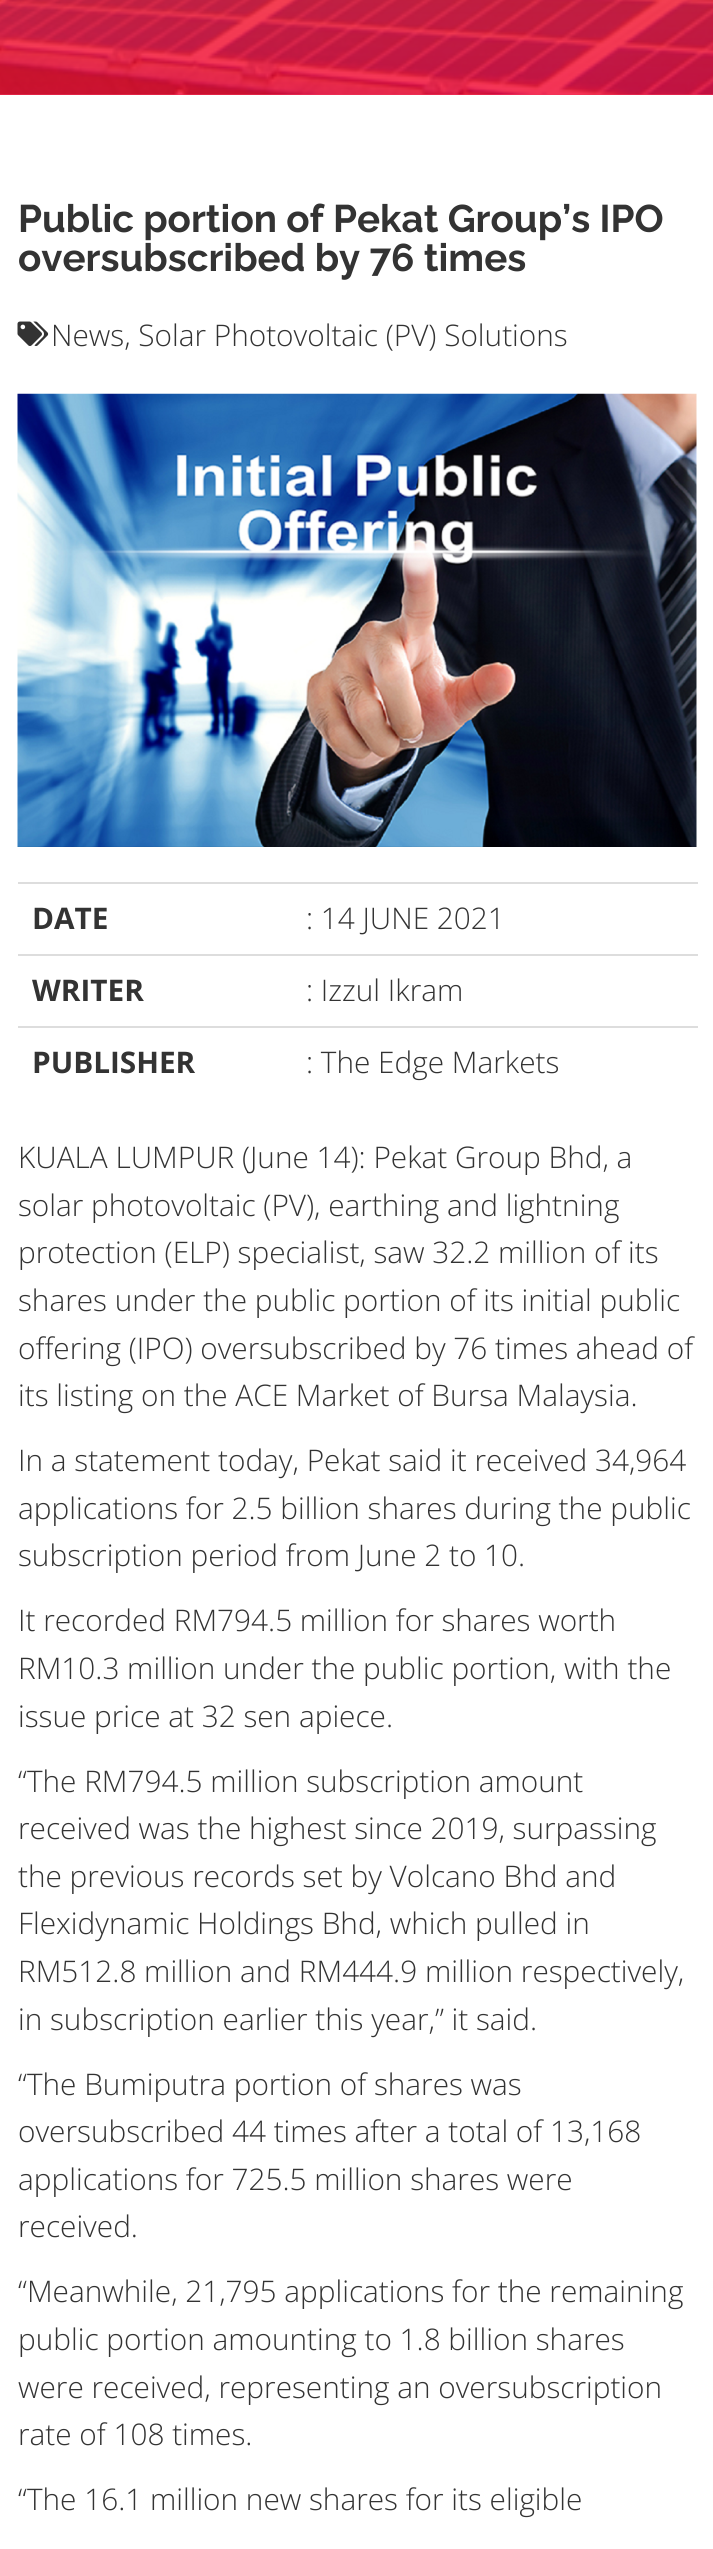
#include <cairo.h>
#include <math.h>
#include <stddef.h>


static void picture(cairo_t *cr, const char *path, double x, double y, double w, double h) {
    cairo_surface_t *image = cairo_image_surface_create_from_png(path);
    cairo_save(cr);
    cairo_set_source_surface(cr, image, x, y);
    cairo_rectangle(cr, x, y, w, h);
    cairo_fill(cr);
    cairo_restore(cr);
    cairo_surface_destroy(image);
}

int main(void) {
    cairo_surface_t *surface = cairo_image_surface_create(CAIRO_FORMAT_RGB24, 713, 2549);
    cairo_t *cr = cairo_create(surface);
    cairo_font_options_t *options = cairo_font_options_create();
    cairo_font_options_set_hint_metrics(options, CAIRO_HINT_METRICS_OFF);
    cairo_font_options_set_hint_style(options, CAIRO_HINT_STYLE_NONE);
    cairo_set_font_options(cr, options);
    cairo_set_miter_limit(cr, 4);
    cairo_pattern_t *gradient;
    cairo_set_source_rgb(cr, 1, 1, 1);
    cairo_paint(cr);
    picture(cr, "img1.png", 0, 0, 713, 95);
    gradient = cairo_pattern_create_linear(357, -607, 357, 95);
    cairo_pattern_add_color_stop_rgba(gradient, 0, 0.933, 0.392, 0.004, 0.8);
    cairo_pattern_add_color_stop_rgba(gradient, 1, 0.945, 0, 0.176, 0.8);
    cairo_set_source(cr, gradient);
    cairo_pattern_destroy(gradient);
    cairo_rectangle(cr, 0, 0, 713, 95);
    cairo_fill(cr);
    cairo_select_font_face(cr, "Raleway", CAIRO_FONT_SLANT_NORMAL, CAIRO_FONT_WEIGHT_BOLD);
    cairo_set_font_size(cr, 38.5);
    cairo_set_source_rgb(cr, 0.2, 0.2, 0.2);
    cairo_move_to(cr, 18, 232);
    cairo_show_text(cr, "Public portion of Pekat Group’s IPO");
    cairo_move_to(cr, 18, 271);
    cairo_show_text(cr, "oversubscribed by 76 times");
    picture(cr, "img2.png", 17, 321, 32, 25);
    cairo_select_font_face(cr, "Open Sans Light", CAIRO_FONT_SLANT_NORMAL, CAIRO_FONT_WEIGHT_NORMAL);
    cairo_set_font_size(cr, 29.75);
    cairo_move_to(cr, 51, 346);
    cairo_show_text(cr, "News, Solar Photovoltaic (PV) Solutions");
    picture(cr, "img3.png", 17, 393, 680, 454);
    cairo_select_font_face(cr, "Open Sans", CAIRO_FONT_SLANT_NORMAL, CAIRO_FONT_WEIGHT_BOLD);
    cairo_move_to(cr, 32, 929);
    cairo_show_text(cr, "DATE");
    cairo_set_source_rgb(cr, 0.867, 0.867, 0.867);
    cairo_rectangle(cr, 18, 882, 680, 2);
    cairo_fill(cr);
    cairo_select_font_face(cr, "Open Sans Light", CAIRO_FONT_SLANT_NORMAL, CAIRO_FONT_WEIGHT_NORMAL);
    cairo_set_source_rgb(cr, 0.2, 0.2, 0.2);
    cairo_move_to(cr, 306, 929);
    cairo_show_text(cr, ": 14 JUNE 2021");
    cairo_select_font_face(cr, "Open Sans", CAIRO_FONT_SLANT_NORMAL, CAIRO_FONT_WEIGHT_BOLD);
    cairo_move_to(cr, 32, 1001);
    cairo_show_text(cr, "WRITER");
    cairo_set_source_rgb(cr, 0.867, 0.867, 0.867);
    cairo_rectangle(cr, 18, 954, 680, 2);
    cairo_fill(cr);
    cairo_select_font_face(cr, "Open Sans Light", CAIRO_FONT_SLANT_NORMAL, CAIRO_FONT_WEIGHT_NORMAL);
    cairo_set_source_rgb(cr, 0.2, 0.2, 0.2);
    cairo_move_to(cr, 306, 1001);
    cairo_show_text(cr, ": Izzul Ikram");
    cairo_select_font_face(cr, "Open Sans", CAIRO_FONT_SLANT_NORMAL, CAIRO_FONT_WEIGHT_BOLD);
    cairo_move_to(cr, 32, 1073);
    cairo_show_text(cr, "PUBLISHER");
    cairo_set_source_rgb(cr, 0.867, 0.867, 0.867);
    cairo_rectangle(cr, 18, 1026, 680, 2);
    cairo_fill(cr);
    cairo_select_font_face(cr, "Open Sans Light", CAIRO_FONT_SLANT_NORMAL, CAIRO_FONT_WEIGHT_NORMAL);
    cairo_set_source_rgb(cr, 0.2, 0.2, 0.2);
    cairo_move_to(cr, 306, 1073);
    cairo_show_text(cr, ": The Edge Markets");
    cairo_move_to(cr, 18, 1168);
    cairo_show_text(cr, "KUALA LUMPUR (June 14): Pekat Group Bhd, a");
    cairo_move_to(cr, 18, 1216);
    cairo_show_text(cr, "solar photovoltaic (PV), earthing and lightning");
    cairo_move_to(cr, 18, 1263);
    cairo_show_text(cr, "protection (ELP) specialist, saw 32.2 million of its");
    cairo_move_to(cr, 18, 1311);
    cairo_show_text(cr, "shares under the public portion of its initial public");
    cairo_move_to(cr, 18, 1359);
    cairo_show_text(cr, "offering (IPO) oversubscribed by 76 times ahead of");
    cairo_move_to(cr, 18, 1406);
    cairo_show_text(cr, "its listing on the ACE Market of Bursa Malaysia.");
    cairo_move_to(cr, 18, 1471);
    cairo_show_text(cr, "In a statement today, Pekat said it received 34,964");
    cairo_move_to(cr, 18, 1519);
    cairo_show_text(cr, "applications for 2.5 billion shares during the public");
    cairo_move_to(cr, 18, 1566);
    cairo_show_text(cr, "subscription period from June 2 to 10.");
    cairo_move_to(cr, 18, 1631);
    cairo_show_text(cr, "It recorded RM794.5 million for shares worth");
    cairo_move_to(cr, 18, 1679);
    cairo_show_text(cr, "RM10.3 million under the public portion, with the");
    cairo_move_to(cr, 18, 1727);
    cairo_show_text(cr, "issue price at 32 sen apiece.");
    cairo_move_to(cr, 18, 1792);
    cairo_show_text(cr, "“The RM794.5 million subscription amount");
    cairo_move_to(cr, 18, 1839);
    cairo_show_text(cr, "received was the highest since 2019, surpassing");
    cairo_move_to(cr, 18, 1887);
    cairo_show_text(cr, "the previous records set by Volcano Bhd and");
    cairo_move_to(cr, 18, 1934);
    cairo_show_text(cr, "Flexidynamic Holdings Bhd, which pulled in");
    cairo_move_to(cr, 18, 1982);
    cairo_show_text(cr, "RM512.8 million and RM444.9 million respectively,");
    cairo_move_to(cr, 18, 2030);
    cairo_show_text(cr, "in subscription earlier this year,” it said.");
    cairo_move_to(cr, 18, 2095);
    cairo_show_text(cr, "“The Bumiputra portion of shares was");
    cairo_move_to(cr, 18, 2142);
    cairo_show_text(cr, "oversubscribed 44 times after a total of 13,168");
    cairo_move_to(cr, 18, 2190);
    cairo_show_text(cr, "applications for 725.5 million shares were");
    cairo_move_to(cr, 18, 2237);
    cairo_show_text(cr, "received.");
    cairo_move_to(cr, 18, 2302);
    cairo_show_text(cr, "“Meanwhile, 21,795 applications for the remaining");
    cairo_move_to(cr, 18, 2350);
    cairo_show_text(cr, "public portion amounting to 1.8 billion shares");
    cairo_move_to(cr, 18, 2398);
    cairo_show_text(cr, "were received, representing an oversubscription");
    cairo_move_to(cr, 18, 2445);
    cairo_show_text(cr, "rate of 108 times.");
    cairo_move_to(cr, 18, 2510);
    cairo_show_text(cr, "“The 16.1 million new shares for its eligible");
    cairo_surface_write_to_png(surface, "page.png");
    cairo_font_options_destroy(options);
    cairo_destroy(cr);
    cairo_surface_destroy(surface);
    return 0;
}
